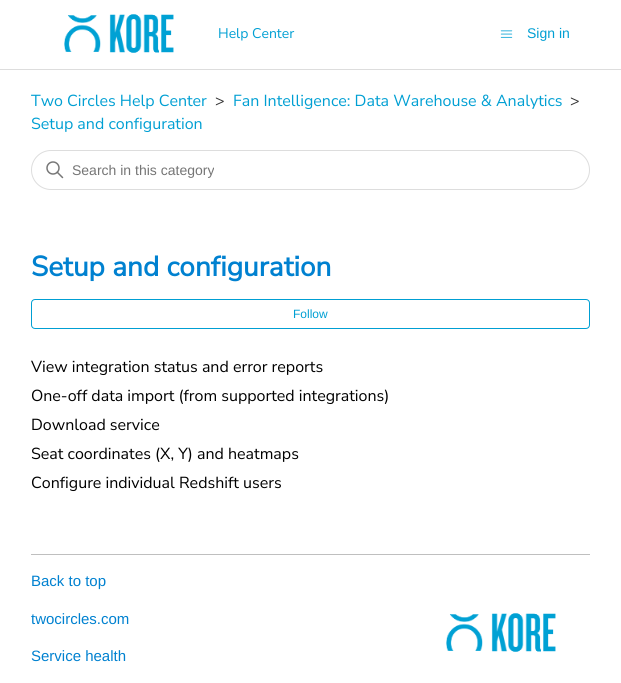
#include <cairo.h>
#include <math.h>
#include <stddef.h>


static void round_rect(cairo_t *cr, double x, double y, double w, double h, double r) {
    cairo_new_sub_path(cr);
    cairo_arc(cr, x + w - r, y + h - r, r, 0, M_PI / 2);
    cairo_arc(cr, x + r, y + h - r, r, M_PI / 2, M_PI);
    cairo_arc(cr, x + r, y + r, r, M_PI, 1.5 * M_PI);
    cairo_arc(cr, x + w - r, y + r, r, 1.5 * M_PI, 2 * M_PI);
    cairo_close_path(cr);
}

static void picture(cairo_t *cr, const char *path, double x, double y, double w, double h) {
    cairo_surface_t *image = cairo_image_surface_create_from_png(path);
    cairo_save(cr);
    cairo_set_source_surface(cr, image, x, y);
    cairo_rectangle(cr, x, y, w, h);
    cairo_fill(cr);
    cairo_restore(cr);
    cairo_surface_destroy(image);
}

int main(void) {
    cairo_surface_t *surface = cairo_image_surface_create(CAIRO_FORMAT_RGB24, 621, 683);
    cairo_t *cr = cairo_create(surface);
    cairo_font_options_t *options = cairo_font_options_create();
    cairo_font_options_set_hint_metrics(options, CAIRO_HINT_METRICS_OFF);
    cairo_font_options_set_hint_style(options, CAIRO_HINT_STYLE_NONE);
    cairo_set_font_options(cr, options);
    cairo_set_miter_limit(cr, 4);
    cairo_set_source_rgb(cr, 1, 1, 1);
    cairo_paint(cr);
    picture(cr, "img1.png", 64, 14, 110, 39);
    cairo_select_font_face(cr, "Nunito Sans ExtraLight", CAIRO_FONT_SLANT_NORMAL, CAIRO_FONT_WEIGHT_NORMAL);
    cairo_set_font_size(cr, 14);
    cairo_set_source_rgb(cr, 0, 0.624, 0.827);
    cairo_move_to(cr, 218, 38);
    cairo_show_text(cr, "Help Center");
    picture(cr, "img2.png", 500, 30, 13, 8);
    cairo_select_font_face(cr, "Liberation Sans", CAIRO_FONT_SLANT_NORMAL, CAIRO_FONT_WEIGHT_NORMAL);
    cairo_move_to(cr, 527, 38);
    cairo_show_text(cr, "Sign in");
    cairo_set_source_rgb(cr, 0.867, 0.867, 0.867);
    cairo_rectangle(cr, 0, 69, 621, 1);
    cairo_fill(cr);
    cairo_select_font_face(cr, "Nunito Sans ExtraLight", CAIRO_FONT_SLANT_NORMAL, CAIRO_FONT_WEIGHT_NORMAL);
    cairo_set_font_size(cr, 16);
    cairo_set_source_rgb(cr, 0, 0.624, 0.827);
    cairo_move_to(cr, 31, 106);
    cairo_show_text(cr, "Two Circles Help Center");
    cairo_set_source_rgb(cr, 0.2, 0.2, 0.2);
    cairo_move_to(cr, 215, 106);
    cairo_show_text(cr, ">");
    cairo_set_source_rgb(cr, 0, 0.624, 0.827);
    cairo_move_to(cr, 233, 106);
    cairo_show_text(cr, "Fan Intelligence: Data Warehouse & Analytics");
    cairo_set_source_rgb(cr, 0.2, 0.2, 0.2);
    cairo_move_to(cr, 570, 106);
    cairo_show_text(cr, ">");
    cairo_set_source_rgb(cr, 0, 0.624, 0.827);
    cairo_move_to(cr, 31, 129);
    cairo_show_text(cr, "Setup and configuration");
    round_rect(cr, 31.5, 150.5, 558, 39, 19.5);
    cairo_set_source_rgb(cr, 0.867, 0.867, 0.867);
    cairo_set_line_width(cr, 1);
    cairo_stroke(cr);
    picture(cr, "img3.png", 46, 161, 18, 18);
    cairo_select_font_face(cr, "Liberation Sans", CAIRO_FONT_SLANT_NORMAL, CAIRO_FONT_WEIGHT_NORMAL);
    cairo_set_font_size(cr, 14);
    cairo_set_source_rgb(cr, 0.459, 0.459, 0.459);
    cairo_move_to(cr, 72, 175);
    cairo_show_text(cr, "Search in this category");
    cairo_select_font_face(cr, "Nunito Sans", CAIRO_FONT_SLANT_NORMAL, CAIRO_FONT_WEIGHT_BOLD);
    cairo_set_font_size(cr, 28);
    cairo_set_source_rgb(cr, 0, 0.506, 0.816);
    cairo_move_to(cr, 31, 276);
    cairo_show_text(cr, "Setup and configuration");
    round_rect(cr, 31.5, 299.5, 558, 29, 3.5);
    cairo_set_source_rgb(cr, 0, 0.624, 0.827);
    cairo_stroke(cr);
    cairo_select_font_face(cr, "Liberation Sans", CAIRO_FONT_SLANT_NORMAL, CAIRO_FONT_WEIGHT_NORMAL);
    cairo_set_font_size(cr, 12);
    cairo_move_to(cr, 293, 318);
    cairo_show_text(cr, "Follow");
    cairo_select_font_face(cr, "Nunito Sans ExtraLight", CAIRO_FONT_SLANT_NORMAL, CAIRO_FONT_WEIGHT_NORMAL);
    cairo_set_font_size(cr, 16);
    cairo_set_source_rgb(cr, 0, 0, 0);
    cairo_move_to(cr, 31, 372);
    cairo_show_text(cr, "View integration status and error reports");
    cairo_move_to(cr, 31, 401);
    cairo_show_text(cr, "One-off data import (from supported integrations)");
    cairo_move_to(cr, 31, 430);
    cairo_show_text(cr, "Download service");
    cairo_move_to(cr, 31, 459);
    cairo_show_text(cr, "Seat coordinates (X, Y) and heatmaps");
    cairo_move_to(cr, 31, 488);
    cairo_show_text(cr, "Configure individual Redshift users");
    cairo_set_source_rgb(cr, 0.749, 0.749, 0.749);
    cairo_rectangle(cr, 31, 554, 559, 1);
    cairo_fill(cr);
    cairo_select_font_face(cr, "Liberation Sans", CAIRO_FONT_SLANT_NORMAL, CAIRO_FONT_WEIGHT_NORMAL);
    cairo_set_font_size(cr, 15);
    cairo_set_source_rgb(cr, 0, 0.506, 0.816);
    cairo_move_to(cr, 31, 586);
    cairo_show_text(cr, "Back to top");
    cairo_move_to(cr, 31, 624);
    cairo_show_text(cr, "twocircles.com");
    cairo_move_to(cr, 31, 661);
    cairo_show_text(cr, "Service health");
    picture(cr, "img4.png", 446, 613, 110, 39);
    cairo_surface_write_to_png(surface, "page.png");
    cairo_font_options_destroy(options);
    cairo_destroy(cr);
    cairo_surface_destroy(surface);
    return 0;
}
